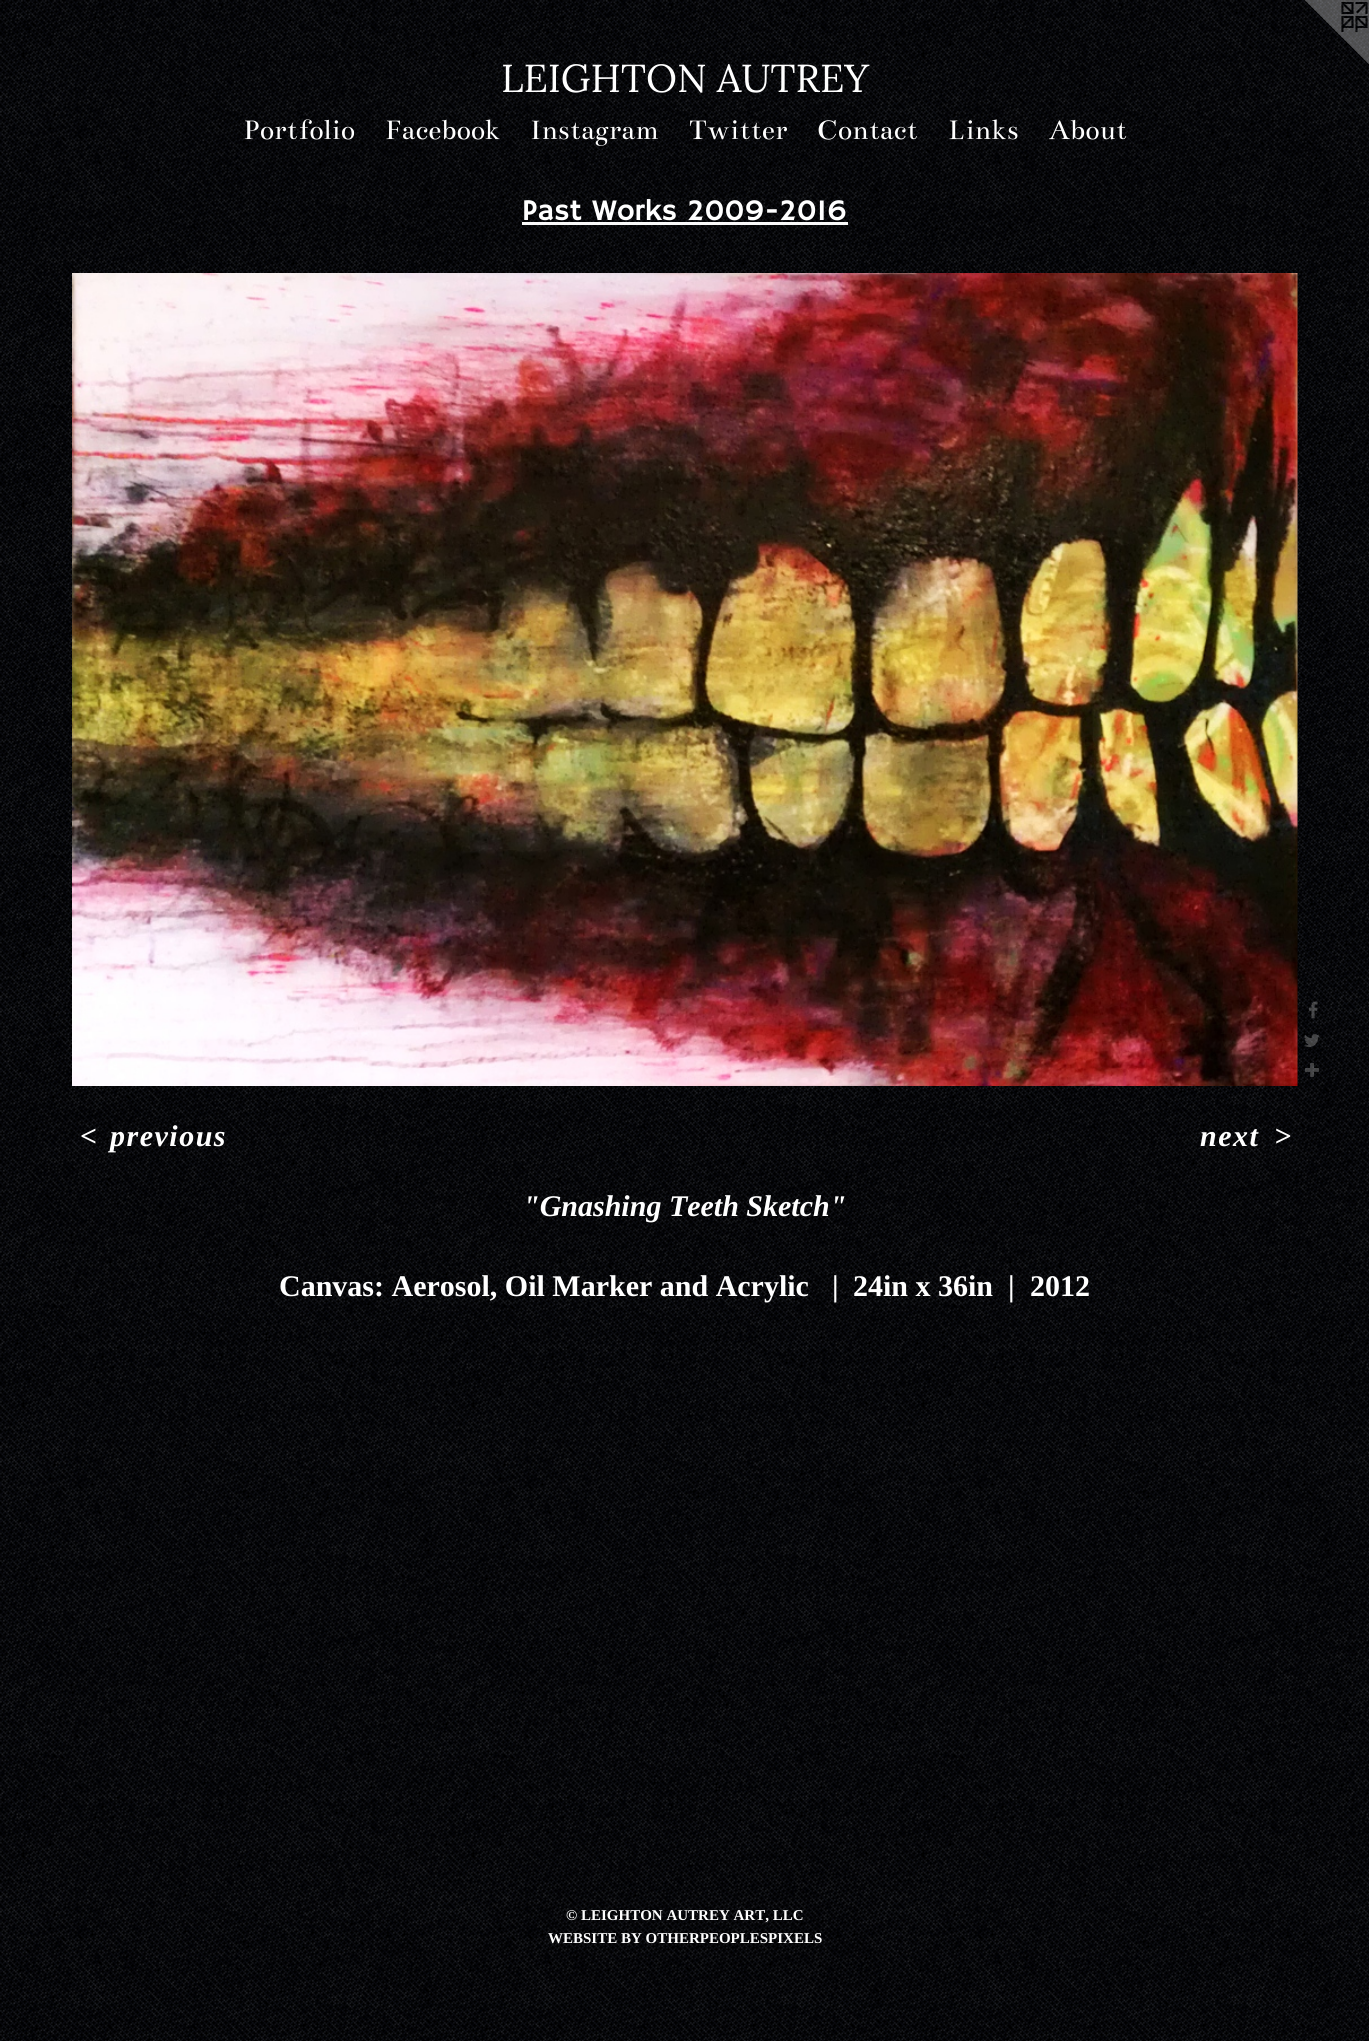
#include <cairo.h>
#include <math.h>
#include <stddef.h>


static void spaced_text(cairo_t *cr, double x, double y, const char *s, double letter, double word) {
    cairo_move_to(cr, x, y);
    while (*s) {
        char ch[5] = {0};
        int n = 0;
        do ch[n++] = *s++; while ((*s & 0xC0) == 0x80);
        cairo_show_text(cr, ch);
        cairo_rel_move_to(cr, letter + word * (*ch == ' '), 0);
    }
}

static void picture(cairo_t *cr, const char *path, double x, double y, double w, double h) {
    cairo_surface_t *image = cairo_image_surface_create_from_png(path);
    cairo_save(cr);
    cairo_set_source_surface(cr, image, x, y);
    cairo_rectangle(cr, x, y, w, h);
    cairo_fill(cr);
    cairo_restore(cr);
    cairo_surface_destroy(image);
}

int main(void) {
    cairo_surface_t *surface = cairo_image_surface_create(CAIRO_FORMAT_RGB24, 1369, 2041);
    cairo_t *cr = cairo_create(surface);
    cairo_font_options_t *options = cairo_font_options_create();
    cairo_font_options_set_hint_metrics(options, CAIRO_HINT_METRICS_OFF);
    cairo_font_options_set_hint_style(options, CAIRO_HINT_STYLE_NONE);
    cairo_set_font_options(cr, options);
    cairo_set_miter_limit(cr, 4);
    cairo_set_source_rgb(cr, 1, 1, 1);
    cairo_paint(cr);
    picture(cr, "img1.png", 0, 0, 1369, 2041);
    picture(cr, "img2.png", 1305, 0, 64, 64);
    cairo_select_font_face(cr, "Lora", CAIRO_FONT_SLANT_NORMAL, CAIRO_FONT_WEIGHT_NORMAL);
    cairo_set_font_size(cr, 39);
    cairo_set_source_rgb(cr, 1, 1, 1);
    cairo_move_to(cr, 501, 92);
    cairo_show_text(cr, "LEIGHTON AUTREY");
    cairo_select_font_face(cr, "Bentham", CAIRO_FONT_SLANT_NORMAL, CAIRO_FONT_WEIGHT_NORMAL);
    cairo_set_font_size(cr, 30);
    cairo_move_to(cr, 243, 139);
    cairo_show_text(cr, "Portfolio");
    cairo_move_to(cr, 385, 139);
    cairo_show_text(cr, "Facebook");
    cairo_move_to(cr, 530, 139);
    cairo_show_text(cr, "Instagram");
    cairo_move_to(cr, 689, 139);
    cairo_show_text(cr, "Twitter");
    cairo_move_to(cr, 817, 139);
    cairo_show_text(cr, "Contact");
    cairo_move_to(cr, 948, 139);
    cairo_show_text(cr, "Links");
    cairo_move_to(cr, 1049, 139);
    cairo_show_text(cr, "About");
    cairo_select_font_face(cr, "Hammersmith One", CAIRO_FONT_SLANT_NORMAL, CAIRO_FONT_WEIGHT_NORMAL);
    cairo_move_to(cr, 522, 220);
    cairo_show_text(cr, "Past Works 2009-2016");
    cairo_set_source_rgb(cr, 0.98, 0.98, 0.98);
    cairo_rectangle(cr, 522, 222, 326, 3);
    cairo_fill(cr);
    picture(cr, "img3.png", 72, 273, 1226, 813);
    picture(cr, "img4.png", 1309, 1001, 9, 18);
    picture(cr, "img5.png", 1304, 1034, 16, 13);
    picture(cr, "img6.png", 1305, 1062, 15, 15);
    cairo_select_font_face(cr, "Liberation Serif", CAIRO_FONT_SLANT_ITALIC, CAIRO_FONT_WEIGHT_BOLD);
    cairo_set_source_rgb(cr, 1, 1, 1);
    spaced_text(cr, 80, 1146, "<", 1.5, 0);
    spaced_text(cr, 110, 1146, "previous", 1.5, 0);
    spaced_text(cr, 1200, 1146, "next", 1.5, 0);
    spaced_text(cr, 1274, 1146, ">", 1.5, 0);
    cairo_move_to(cr, 523, 1216);
    cairo_show_text(cr, "\"Gnashing Teeth Sketch\"");
    cairo_select_font_face(cr, "Liberation Serif", CAIRO_FONT_SLANT_NORMAL, CAIRO_FONT_WEIGHT_BOLD);
    cairo_move_to(cr, 279, 1296);
    cairo_show_text(cr, "Canvas: Aerosol, Oil Marker and Acrylic");
    cairo_move_to(cr, 832, 1296);
    cairo_show_text(cr, "|");
    cairo_move_to(cr, 853, 1296);
    cairo_show_text(cr, "24in x 36in");
    cairo_move_to(cr, 1008, 1296);
    cairo_show_text(cr, "|");
    cairo_move_to(cr, 1030, 1296);
    cairo_show_text(cr, "2012");
    cairo_set_font_size(cr, 15);
    cairo_move_to(cr, 566, 1920);
    cairo_show_text(cr, "© LEIGHTON AUTREY ART, LLC");
    cairo_move_to(cr, 548, 1943);
    cairo_show_text(cr, "WEBSITE BY OTHERPEOPLESPIXELS");
    cairo_surface_write_to_png(surface, "page.png");
    cairo_font_options_destroy(options);
    cairo_destroy(cr);
    cairo_surface_destroy(surface);
    return 0;
}
